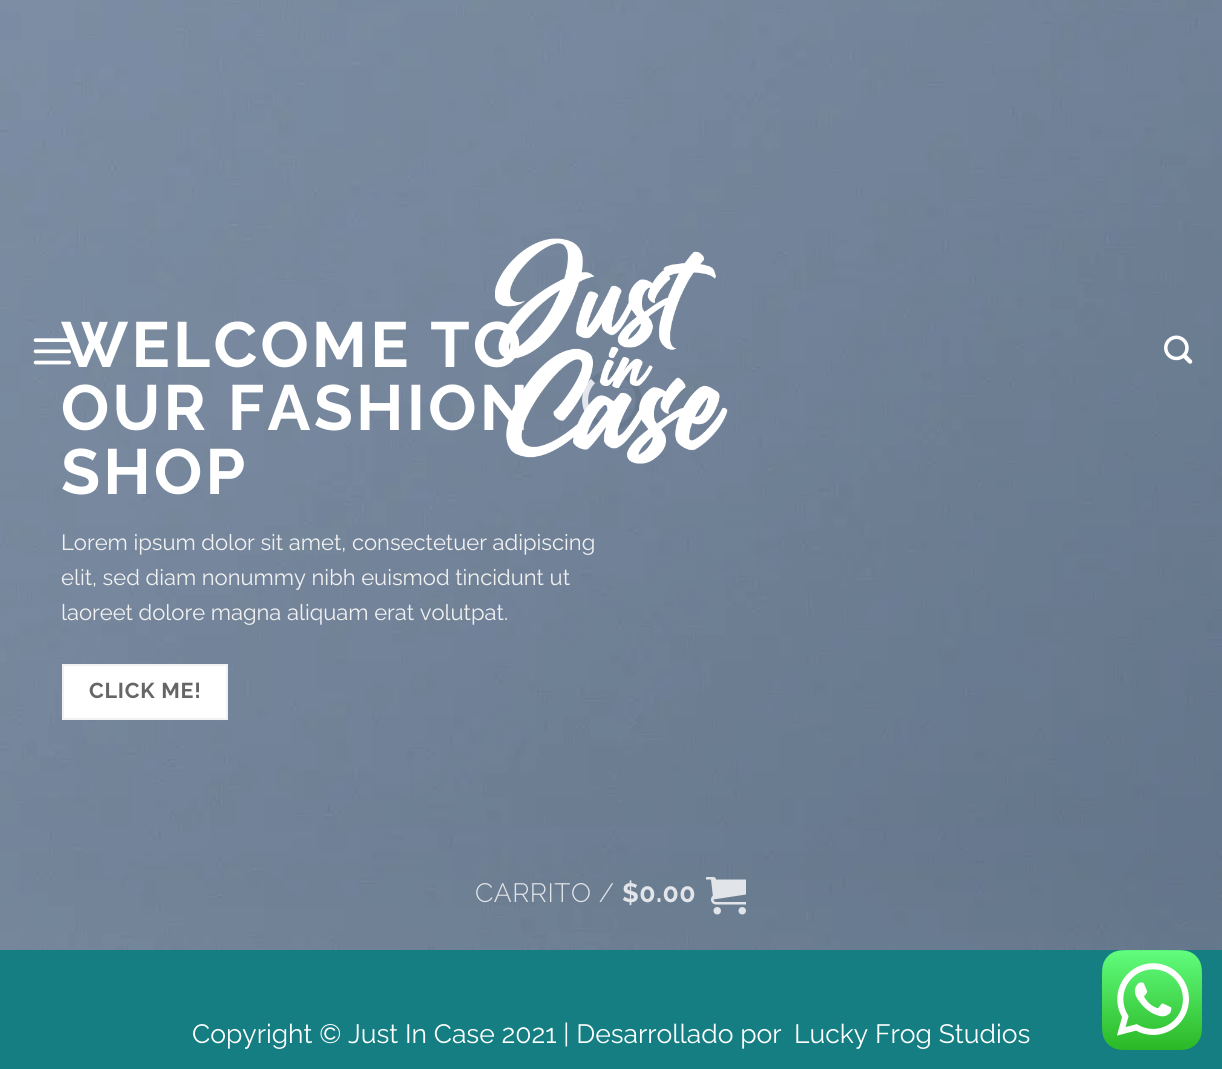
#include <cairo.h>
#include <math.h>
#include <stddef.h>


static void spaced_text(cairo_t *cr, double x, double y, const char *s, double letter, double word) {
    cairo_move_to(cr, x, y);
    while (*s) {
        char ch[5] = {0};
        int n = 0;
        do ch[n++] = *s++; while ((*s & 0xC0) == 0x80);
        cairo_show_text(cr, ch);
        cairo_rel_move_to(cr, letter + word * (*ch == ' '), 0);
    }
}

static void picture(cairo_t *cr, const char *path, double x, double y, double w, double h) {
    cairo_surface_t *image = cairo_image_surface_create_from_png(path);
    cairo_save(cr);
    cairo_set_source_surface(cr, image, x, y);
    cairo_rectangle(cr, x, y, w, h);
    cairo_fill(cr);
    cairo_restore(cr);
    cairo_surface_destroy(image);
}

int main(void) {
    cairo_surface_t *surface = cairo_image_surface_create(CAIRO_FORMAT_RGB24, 1222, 1069);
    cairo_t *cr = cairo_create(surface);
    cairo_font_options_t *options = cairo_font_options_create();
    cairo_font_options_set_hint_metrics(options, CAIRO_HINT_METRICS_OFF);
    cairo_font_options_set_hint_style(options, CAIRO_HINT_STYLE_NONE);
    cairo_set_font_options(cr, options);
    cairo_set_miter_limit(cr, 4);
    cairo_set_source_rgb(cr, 0.082, 0.494, 0.51);
    cairo_paint(cr);
    picture(cr, "img1.png", 0, 0, 1222, 950);
    cairo_select_font_face(cr, "Raleway", CAIRO_FONT_SLANT_NORMAL, CAIRO_FONT_WEIGHT_BOLD);
    cairo_set_font_size(cr, 63.75);
    cairo_set_source_rgb(cr, 1, 1, 1);
    spaced_text(cr, 61, 367, "WELCOME TO", 3.25, 0);
    spaced_text(cr, 61, 430, "OUR FASHION", 3.25, 0);
    spaced_text(cr, 61, 494, "SHOP", 3.25, 0);
    cairo_select_font_face(cr, "Raleway", CAIRO_FONT_SLANT_NORMAL, CAIRO_FONT_WEIGHT_NORMAL);
    cairo_set_font_size(cr, 22);
    cairo_set_source_rgb(cr, 0.945, 0.945, 0.945);
    cairo_move_to(cr, 61, 550);
    cairo_show_text(cr, "Lorem ipsum dolor sit amet, consectetuer adipiscing");
    cairo_move_to(cr, 61, 585);
    cairo_show_text(cr, "elit, sed diam nonummy nibh euismod tincidunt ut");
    cairo_move_to(cr, 61, 620);
    cairo_show_text(cr, "laoreet dolore magna aliquam erat volutpat.");
    cairo_set_source_rgb(cr, 1, 1, 1);
    cairo_rectangle(cr, 63, 665, 164, 54);
    cairo_fill_preserve(cr);
    cairo_set_source_rgb(cr, 0.949, 0.949, 0.949);
    cairo_stroke(cr);
    cairo_select_font_face(cr, "Raleway", CAIRO_FONT_SLANT_NORMAL, CAIRO_FONT_WEIGHT_BOLD);
    cairo_set_font_size(cr, 21.5);
    cairo_set_source_rgb(cr, 0.4, 0.4, 0.4);
    spaced_text(cr, 89, 698, "CLICK ME!", 0.75, 0);
    cairo_new_path(cr);
    cairo_move_to(cr, 593, 381);
    cairo_curve_to(cr, 598, 376, 605, 373, 612, 373);
    cairo_curve_to(cr, 644, 373, 649, 420, 617.5, 426.5);
    cairo_curve_to(cr, 608.5, 428, 599, 425.5, 593, 419);
    cairo_set_source_rgba(cr, 0, 0, 0, 0.08);
    cairo_set_line_width(cr, 6);
    cairo_stroke(cr);
    cairo_new_path(cr);
    cairo_move_to(cr, 593, 419);
    cairo_curve_to(cr, 582.5, 408.5, 582.5, 391.5, 593, 381);
    cairo_set_source_rgb(cr, 0.89, 0.902, 0.922);
    cairo_stroke(cr);
    picture(cr, "img2.png", 33, 338, 38, 27);
    picture(cr, "img3.png", 495, 238, 233, 226);
    picture(cr, "img4.png", 1164, 335, 29, 29);
    cairo_select_font_face(cr, "Raleway Light", CAIRO_FONT_SLANT_NORMAL, CAIRO_FONT_WEIGHT_NORMAL);
    cairo_set_font_size(cr, 26.5);
    cairo_set_source_rgb(cr, 0.886, 0.898, 0.914);
    spaced_text(cr, 475, 902, "CARRITO /", 0.5, 0);
    cairo_select_font_face(cr, "Raleway", CAIRO_FONT_SLANT_NORMAL, CAIRO_FONT_WEIGHT_BOLD);
    spaced_text(cr, 622, 902, "$0.00", 0.5, 0);
    picture(cr, "img5.png", 706, 877, 40, 38);
    cairo_select_font_face(cr, "Raleway", CAIRO_FONT_SLANT_NORMAL, CAIRO_FONT_WEIGHT_NORMAL);
    cairo_set_source_rgb(cr, 1, 1, 1);
    cairo_move_to(cr, 192, 1043);
    cairo_show_text(cr, "Copyright © Just In Case 2021 | Desarrollado por");
    cairo_move_to(cr, 794, 1043);
    cairo_show_text(cr, "Lucky Frog Studios");
    picture(cr, "img6.png", 1102, 950, 100, 100);
    cairo_surface_write_to_png(surface, "page.png");
    cairo_font_options_destroy(options);
    cairo_destroy(cr);
    cairo_surface_destroy(surface);
    return 0;
}
